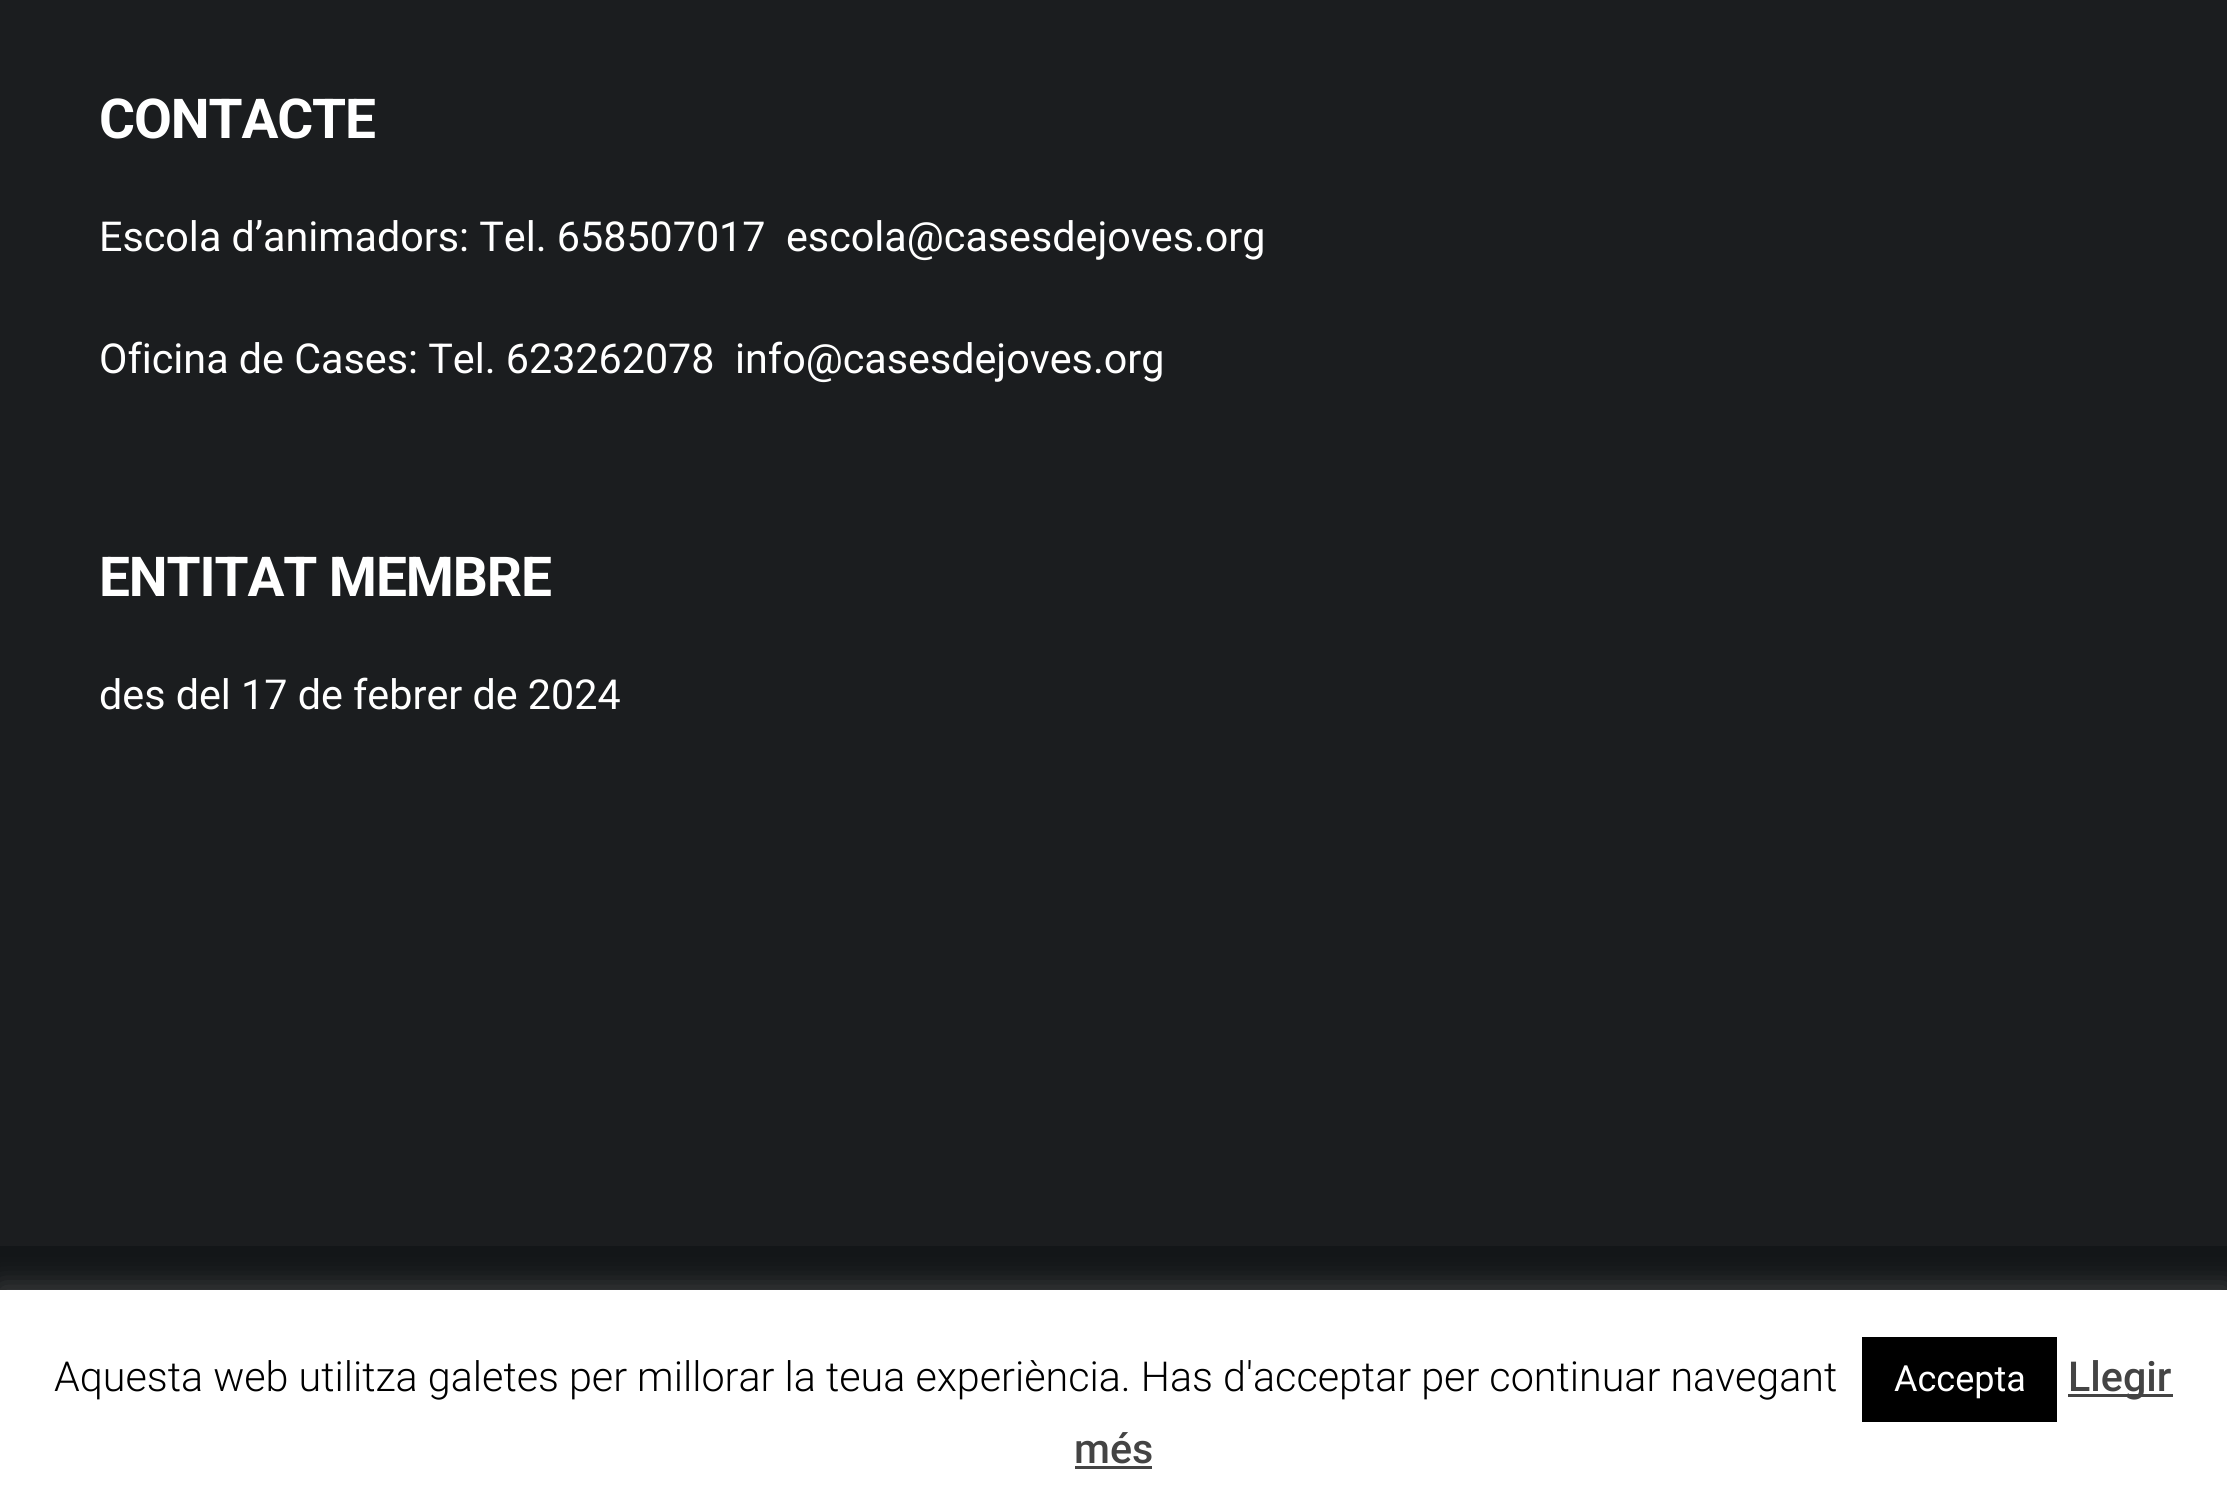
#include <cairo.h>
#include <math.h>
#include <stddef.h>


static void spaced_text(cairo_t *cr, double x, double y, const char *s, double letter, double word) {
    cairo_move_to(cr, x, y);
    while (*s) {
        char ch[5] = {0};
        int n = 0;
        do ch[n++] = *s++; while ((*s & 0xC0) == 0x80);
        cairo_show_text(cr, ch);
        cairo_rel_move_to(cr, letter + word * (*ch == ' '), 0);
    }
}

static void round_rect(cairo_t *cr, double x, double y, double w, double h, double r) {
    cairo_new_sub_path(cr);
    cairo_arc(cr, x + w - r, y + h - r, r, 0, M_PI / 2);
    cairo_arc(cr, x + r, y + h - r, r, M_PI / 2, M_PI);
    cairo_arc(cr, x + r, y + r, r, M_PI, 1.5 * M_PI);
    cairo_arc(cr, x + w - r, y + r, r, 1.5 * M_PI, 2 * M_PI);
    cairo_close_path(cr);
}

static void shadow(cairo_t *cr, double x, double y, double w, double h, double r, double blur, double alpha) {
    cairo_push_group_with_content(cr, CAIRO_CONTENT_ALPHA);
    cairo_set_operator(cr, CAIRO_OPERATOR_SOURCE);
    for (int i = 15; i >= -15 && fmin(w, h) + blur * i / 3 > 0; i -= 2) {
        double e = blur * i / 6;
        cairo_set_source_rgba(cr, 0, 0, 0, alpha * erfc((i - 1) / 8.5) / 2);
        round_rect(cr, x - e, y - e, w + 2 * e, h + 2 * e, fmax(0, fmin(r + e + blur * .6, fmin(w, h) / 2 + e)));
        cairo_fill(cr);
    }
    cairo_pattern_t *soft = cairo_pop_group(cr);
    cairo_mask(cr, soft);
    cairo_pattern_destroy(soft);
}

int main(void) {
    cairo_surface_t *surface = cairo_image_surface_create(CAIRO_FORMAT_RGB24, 2227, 1505);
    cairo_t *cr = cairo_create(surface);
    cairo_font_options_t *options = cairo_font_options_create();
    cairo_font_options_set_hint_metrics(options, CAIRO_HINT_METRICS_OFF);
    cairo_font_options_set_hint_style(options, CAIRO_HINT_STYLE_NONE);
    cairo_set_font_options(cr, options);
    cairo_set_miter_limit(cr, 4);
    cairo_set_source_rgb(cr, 0.078, 0.086, 0.094);
    cairo_paint(cr);
    cairo_set_source_rgb(cr, 0.106, 0.114, 0.122);
    cairo_rectangle(cr, 0, 0, 2227, 1246);
    cairo_fill(cr);
    cairo_select_font_face(cr, "Roboto", CAIRO_FONT_SLANT_NORMAL, CAIRO_FONT_WEIGHT_BOLD);
    cairo_set_font_size(cr, 55);
    cairo_set_source_rgb(cr, 1, 1, 1);
    spaced_text(cr, 99, 138, "CONTACTE", -1.1, 0);
    cairo_select_font_face(cr, "Roboto", CAIRO_FONT_SLANT_NORMAL, CAIRO_FONT_WEIGHT_NORMAL);
    cairo_set_font_size(cr, 41.25);
    cairo_move_to(cr, 99, 251);
    cairo_show_text(cr, "Escola d’animadors: Tel. 658507017");
    cairo_move_to(cr, 786, 251);
    cairo_show_text(cr, "escola@casesdejoves.org");
    cairo_move_to(cr, 99, 373);
    cairo_show_text(cr, "Oficina de Cases: Tel. 623262078");
    cairo_move_to(cr, 735, 373);
    cairo_show_text(cr, "info@casesdejoves.org");
    cairo_select_font_face(cr, "Roboto", CAIRO_FONT_SLANT_NORMAL, CAIRO_FONT_WEIGHT_BOLD);
    cairo_set_font_size(cr, 55);
    spaced_text(cr, 99, 596, "ENTITAT MEMBRE", -1.1, 0);
    cairo_select_font_face(cr, "Roboto", CAIRO_FONT_SLANT_NORMAL, CAIRO_FONT_WEIGHT_NORMAL);
    cairo_set_font_size(cr, 41.25);
    cairo_move_to(cr, 99, 709);
    cairo_show_text(cr, "des del 17 de febrer de 2024");
    cairo_set_source_rgb(cr, 0.675, 0.671, 0.671);
    shadow(cr, 0, 1287, 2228, 217, 0, 14, 0.3);
    cairo_set_source_rgb(cr, 1, 1, 1);
    cairo_rectangle(cr, 0, 1290, 2227, 215);
    cairo_fill(cr);
    cairo_select_font_face(cr, "Roboto Light", CAIRO_FONT_SLANT_NORMAL, CAIRO_FONT_WEIGHT_NORMAL);
    cairo_set_source_rgb(cr, 0, 0, 0);
    cairo_move_to(cr, 54, 1391);
    cairo_show_text(cr, "Aquesta web utilitza galetes per millorar la teua experiència. Has d'acceptar per continuar navegant");
    cairo_rectangle(cr, 1862, 1337, 195, 85);
    cairo_fill(cr);
    cairo_select_font_face(cr, "Roboto", CAIRO_FONT_SLANT_NORMAL, CAIRO_FONT_WEIGHT_NORMAL);
    cairo_set_font_size(cr, 36);
    cairo_set_source_rgb(cr, 1, 1, 1);
    cairo_move_to(cr, 1894, 1391);
    cairo_show_text(cr, "Accepta");
    cairo_set_source_rgb(cr, 0.267, 0.267, 0.267);
    cairo_rectangle(cr, 2068, 1394, 105, 3);
    cairo_fill(cr);
    cairo_select_font_face(cr, "Roboto Medium", CAIRO_FONT_SLANT_NORMAL, CAIRO_FONT_WEIGHT_NORMAL);
    cairo_set_font_size(cr, 41.25);
    cairo_move_to(cr, 2068, 1391);
    cairo_show_text(cr, "Llegir");
    cairo_move_to(cr, 1074, 1463);
    cairo_show_text(cr, "més");
    cairo_rectangle(cr, 1075, 1466, 77, 3);
    cairo_fill(cr);
    cairo_surface_write_to_png(surface, "page.png");
    cairo_font_options_destroy(options);
    cairo_destroy(cr);
    cairo_surface_destroy(surface);
    return 0;
}
